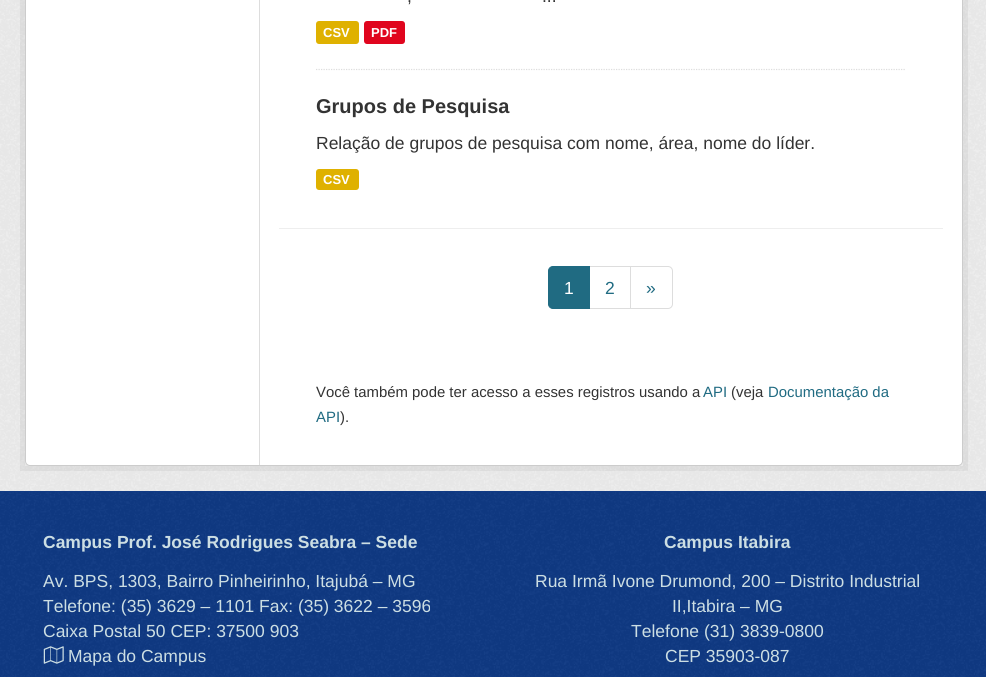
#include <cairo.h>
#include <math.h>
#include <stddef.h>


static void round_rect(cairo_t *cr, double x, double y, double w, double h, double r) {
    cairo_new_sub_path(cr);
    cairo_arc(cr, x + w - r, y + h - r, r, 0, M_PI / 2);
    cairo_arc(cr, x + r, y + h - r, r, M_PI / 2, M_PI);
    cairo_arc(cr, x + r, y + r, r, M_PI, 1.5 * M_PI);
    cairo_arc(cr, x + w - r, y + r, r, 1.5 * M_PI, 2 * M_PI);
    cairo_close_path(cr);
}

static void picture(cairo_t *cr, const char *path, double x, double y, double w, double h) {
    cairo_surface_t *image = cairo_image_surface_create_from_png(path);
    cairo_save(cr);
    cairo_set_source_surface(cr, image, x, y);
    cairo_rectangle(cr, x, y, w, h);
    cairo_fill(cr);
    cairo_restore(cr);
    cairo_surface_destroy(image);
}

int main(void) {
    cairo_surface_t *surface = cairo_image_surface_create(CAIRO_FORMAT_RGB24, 986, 677);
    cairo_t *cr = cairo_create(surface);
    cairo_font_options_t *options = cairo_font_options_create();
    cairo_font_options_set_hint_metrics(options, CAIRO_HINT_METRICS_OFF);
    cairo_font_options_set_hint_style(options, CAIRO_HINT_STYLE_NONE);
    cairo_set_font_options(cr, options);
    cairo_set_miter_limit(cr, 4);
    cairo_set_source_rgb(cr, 0.063, 0.227, 0.518);
    cairo_paint(cr);
    cairo_set_source_rgb(cr, 0.933, 0.933, 0.933);
    cairo_rectangle(cr, 0, 0, 986, 491);
    cairo_fill(cr);
    picture(cr, "img1.png", 0, 0, 986, 491);
    cairo_rectangle(cr, 22.5, -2.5, 943, 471);
    cairo_set_source_rgba(cr, 0, 0, 0, 0.05);
    cairo_set_line_width(cr, 5);
    cairo_stroke(cr);
    cairo_set_source_rgb(cr, 1, 1, 1);
    round_rect(cr, 25.5, -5.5, 937, 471, 4.5);
    cairo_fill_preserve(cr);
    cairo_set_source_rgb(cr, 0.8, 0.8, 0.8);
    cairo_set_line_width(cr, 1);
    cairo_stroke(cr);
    cairo_set_source_rgb(cr, 0.867, 0.867, 0.867);
    cairo_rectangle(cr, 259, 0, 1, 465);
    cairo_fill(cr);
    cairo_new_path(cr);
    cairo_move_to(cr, 316, 69.5);
    cairo_line_to(cr, 905, 69.5);
    cairo_set_line_width(cr, 1.2);
    cairo_set_dash(cr, (double[]){1.25, 1.25}, 2, 0);
    cairo_stroke(cr);
    cairo_select_font_face(cr, "Liberation Sans", CAIRO_FONT_SLANT_NORMAL, CAIRO_FONT_WEIGHT_NORMAL);
    cairo_set_font_size(cr, 17.5);
    cairo_set_source_rgb(cr, 0.2, 0.2, 0.2);
    cairo_move_to(cr, 407, 2);
    cairo_show_text(cr, ",");
    cairo_move_to(cr, 542, 2);
    cairo_show_text(cr, "...");
    cairo_set_source_rgb(cr, 0.875, 0.694, 0);
    round_rect(cr, 316, 21, 43, 23, 3);
    cairo_fill(cr);
    cairo_select_font_face(cr, "Liberation Sans", CAIRO_FONT_SLANT_NORMAL, CAIRO_FONT_WEIGHT_BOLD);
    cairo_set_font_size(cr, 13);
    cairo_set_source_rgb(cr, 1, 1, 1);
    cairo_move_to(cr, 323, 37);
    cairo_show_text(cr, "CSV");
    cairo_set_source_rgb(cr, 0.878, 0.02, 0.118);
    round_rect(cr, 364, 21, 41, 23, 3);
    cairo_fill(cr);
    cairo_set_source_rgb(cr, 1, 1, 1);
    cairo_move_to(cr, 371, 37);
    cairo_show_text(cr, "PDF");
    cairo_set_font_size(cr, 20);
    cairo_set_source_rgb(cr, 0.2, 0.2, 0.2);
    cairo_move_to(cr, 316, 113);
    cairo_show_text(cr, "Grupos de Pesquisa");
    cairo_select_font_face(cr, "Liberation Sans", CAIRO_FONT_SLANT_NORMAL, CAIRO_FONT_WEIGHT_NORMAL);
    cairo_set_font_size(cr, 17.5);
    cairo_move_to(cr, 316, 149);
    cairo_show_text(cr, "Relação de grupos de pesquisa com nome, área, nome do líder.");
    cairo_set_source_rgb(cr, 0.875, 0.694, 0);
    round_rect(cr, 316, 169, 43, 21, 3);
    cairo_fill(cr);
    cairo_select_font_face(cr, "Liberation Sans", CAIRO_FONT_SLANT_NORMAL, CAIRO_FONT_WEIGHT_BOLD);
    cairo_set_font_size(cr, 13);
    cairo_set_source_rgb(cr, 1, 1, 1);
    cairo_move_to(cr, 323, 184);
    cairo_show_text(cr, "CSV");
    cairo_set_source_rgb(cr, 0.933, 0.933, 0.933);
    cairo_rectangle(cr, 279, 228, 664, 1);
    cairo_fill(cr);
    cairo_rectangle(cr, 589.5, 266.5, 41, 42);
    cairo_set_source_rgb(cr, 0.867, 0.867, 0.867);
    cairo_set_line_width(cr, 1);
    cairo_set_dash(cr, NULL, 0, 0);
    cairo_stroke(cr);
    cairo_set_source_rgb(cr, 0.125, 0.42, 0.51);
    cairo_new_path(cr);
    cairo_move_to(cr, 553, 266.5);
    cairo_line_to(cr, 589.5, 266.5);
    cairo_line_to(cr, 589.5, 308.5);
    cairo_line_to(cr, 553, 308.5);
    cairo_curve_to(cr, 550.5, 308.5, 548.5, 306.5, 548.5, 304);
    cairo_line_to(cr, 548.5, 271);
    cairo_curve_to(cr, 548.5, 268.5, 550.5, 266.5, 553, 266.5);
    cairo_close_path(cr);
    cairo_fill_preserve(cr);
    cairo_stroke(cr);
    cairo_select_font_face(cr, "Liberation Sans", CAIRO_FONT_SLANT_NORMAL, CAIRO_FONT_WEIGHT_NORMAL);
    cairo_set_font_size(cr, 17.5);
    cairo_set_source_rgb(cr, 1, 1, 1);
    cairo_move_to(cr, 564, 294);
    cairo_show_text(cr, "1");
    cairo_set_source_rgb(cr, 0.125, 0.42, 0.51);
    cairo_move_to(cr, 605, 294);
    cairo_show_text(cr, "2");
    cairo_set_source_rgb(cr, 1, 1, 1);
    cairo_new_path(cr);
    cairo_move_to(cr, 630.5, 266.5);
    cairo_line_to(cr, 668, 266.5);
    cairo_curve_to(cr, 670.5, 266.5, 672.5, 268.5, 672.5, 271);
    cairo_line_to(cr, 672.5, 304);
    cairo_curve_to(cr, 672.5, 306.5, 670.5, 308.5, 668, 308.5);
    cairo_line_to(cr, 630.5, 308.5);
    cairo_close_path(cr);
    cairo_fill_preserve(cr);
    cairo_set_source_rgb(cr, 0.867, 0.867, 0.867);
    cairo_stroke(cr);
    cairo_set_source_rgb(cr, 0.125, 0.42, 0.51);
    cairo_move_to(cr, 646, 294);
    cairo_show_text(cr, "»");
    cairo_set_font_size(cr, 14.9);
    cairo_set_source_rgb(cr, 0.2, 0.2, 0.2);
    cairo_move_to(cr, 316, 397);
    cairo_show_text(cr, "Você também pode ter acesso a esses registros usando a");
    cairo_set_source_rgb(cr, 0.125, 0.42, 0.51);
    cairo_move_to(cr, 703, 397);
    cairo_show_text(cr, "API");
    cairo_set_source_rgb(cr, 0.2, 0.2, 0.2);
    cairo_move_to(cr, 731, 397);
    cairo_show_text(cr, "(veja");
    cairo_set_source_rgb(cr, 0.125, 0.42, 0.51);
    cairo_move_to(cr, 768, 397);
    cairo_show_text(cr, "Documentação da");
    cairo_move_to(cr, 316, 422);
    cairo_show_text(cr, "API");
    cairo_set_source_rgb(cr, 0.2, 0.2, 0.2);
    cairo_move_to(cr, 340, 422);
    cairo_show_text(cr, ").");
    picture(cr, "img2.png", 0, 492, 986, 185);
    cairo_select_font_face(cr, "Liberation Sans", CAIRO_FONT_SLANT_NORMAL, CAIRO_FONT_WEIGHT_BOLD);
    cairo_set_font_size(cr, 17.5);
    cairo_set_source_rgb(cr, 0.8, 0.871, 0.89);
    cairo_move_to(cr, 43, 548);
    cairo_show_text(cr, "Campus Prof. José Rodrigues Seabra – Sede");
    cairo_select_font_face(cr, "Liberation Sans", CAIRO_FONT_SLANT_NORMAL, CAIRO_FONT_WEIGHT_NORMAL);
    cairo_move_to(cr, 43, 587);
    cairo_show_text(cr, "Av. BPS, 1303, Bairro Pinheirinho, Itajubá – MG");
    cairo_move_to(cr, 43, 612);
    cairo_show_text(cr, "Telefone: (35) 3629 – 1101 Fax: (35) 3622 – 3596");
    cairo_move_to(cr, 43, 637);
    cairo_show_text(cr, "Caixa Postal 50 CEP: 37500 903");
    picture(cr, "img3.png", 43, 646, 21, 18);
    cairo_move_to(cr, 68, 662);
    cairo_show_text(cr, "Mapa do Campus");
    cairo_select_font_face(cr, "Liberation Sans", CAIRO_FONT_SLANT_NORMAL, CAIRO_FONT_WEIGHT_BOLD);
    cairo_move_to(cr, 664, 548);
    cairo_show_text(cr, "Campus Itabira");
    cairo_select_font_face(cr, "Liberation Sans", CAIRO_FONT_SLANT_NORMAL, CAIRO_FONT_WEIGHT_NORMAL);
    cairo_move_to(cr, 535, 587);
    cairo_show_text(cr, "Rua Irmã Ivone Drumond, 200 – Distrito Industrial");
    cairo_move_to(cr, 672, 612);
    cairo_show_text(cr, "II,Itabira – MG");
    cairo_move_to(cr, 631, 637);
    cairo_show_text(cr, "Telefone (31) 3839-0800");
    cairo_move_to(cr, 665, 662);
    cairo_show_text(cr, "CEP 35903-087");
    cairo_surface_write_to_png(surface, "page.png");
    cairo_font_options_destroy(options);
    cairo_destroy(cr);
    cairo_surface_destroy(surface);
    return 0;
}
